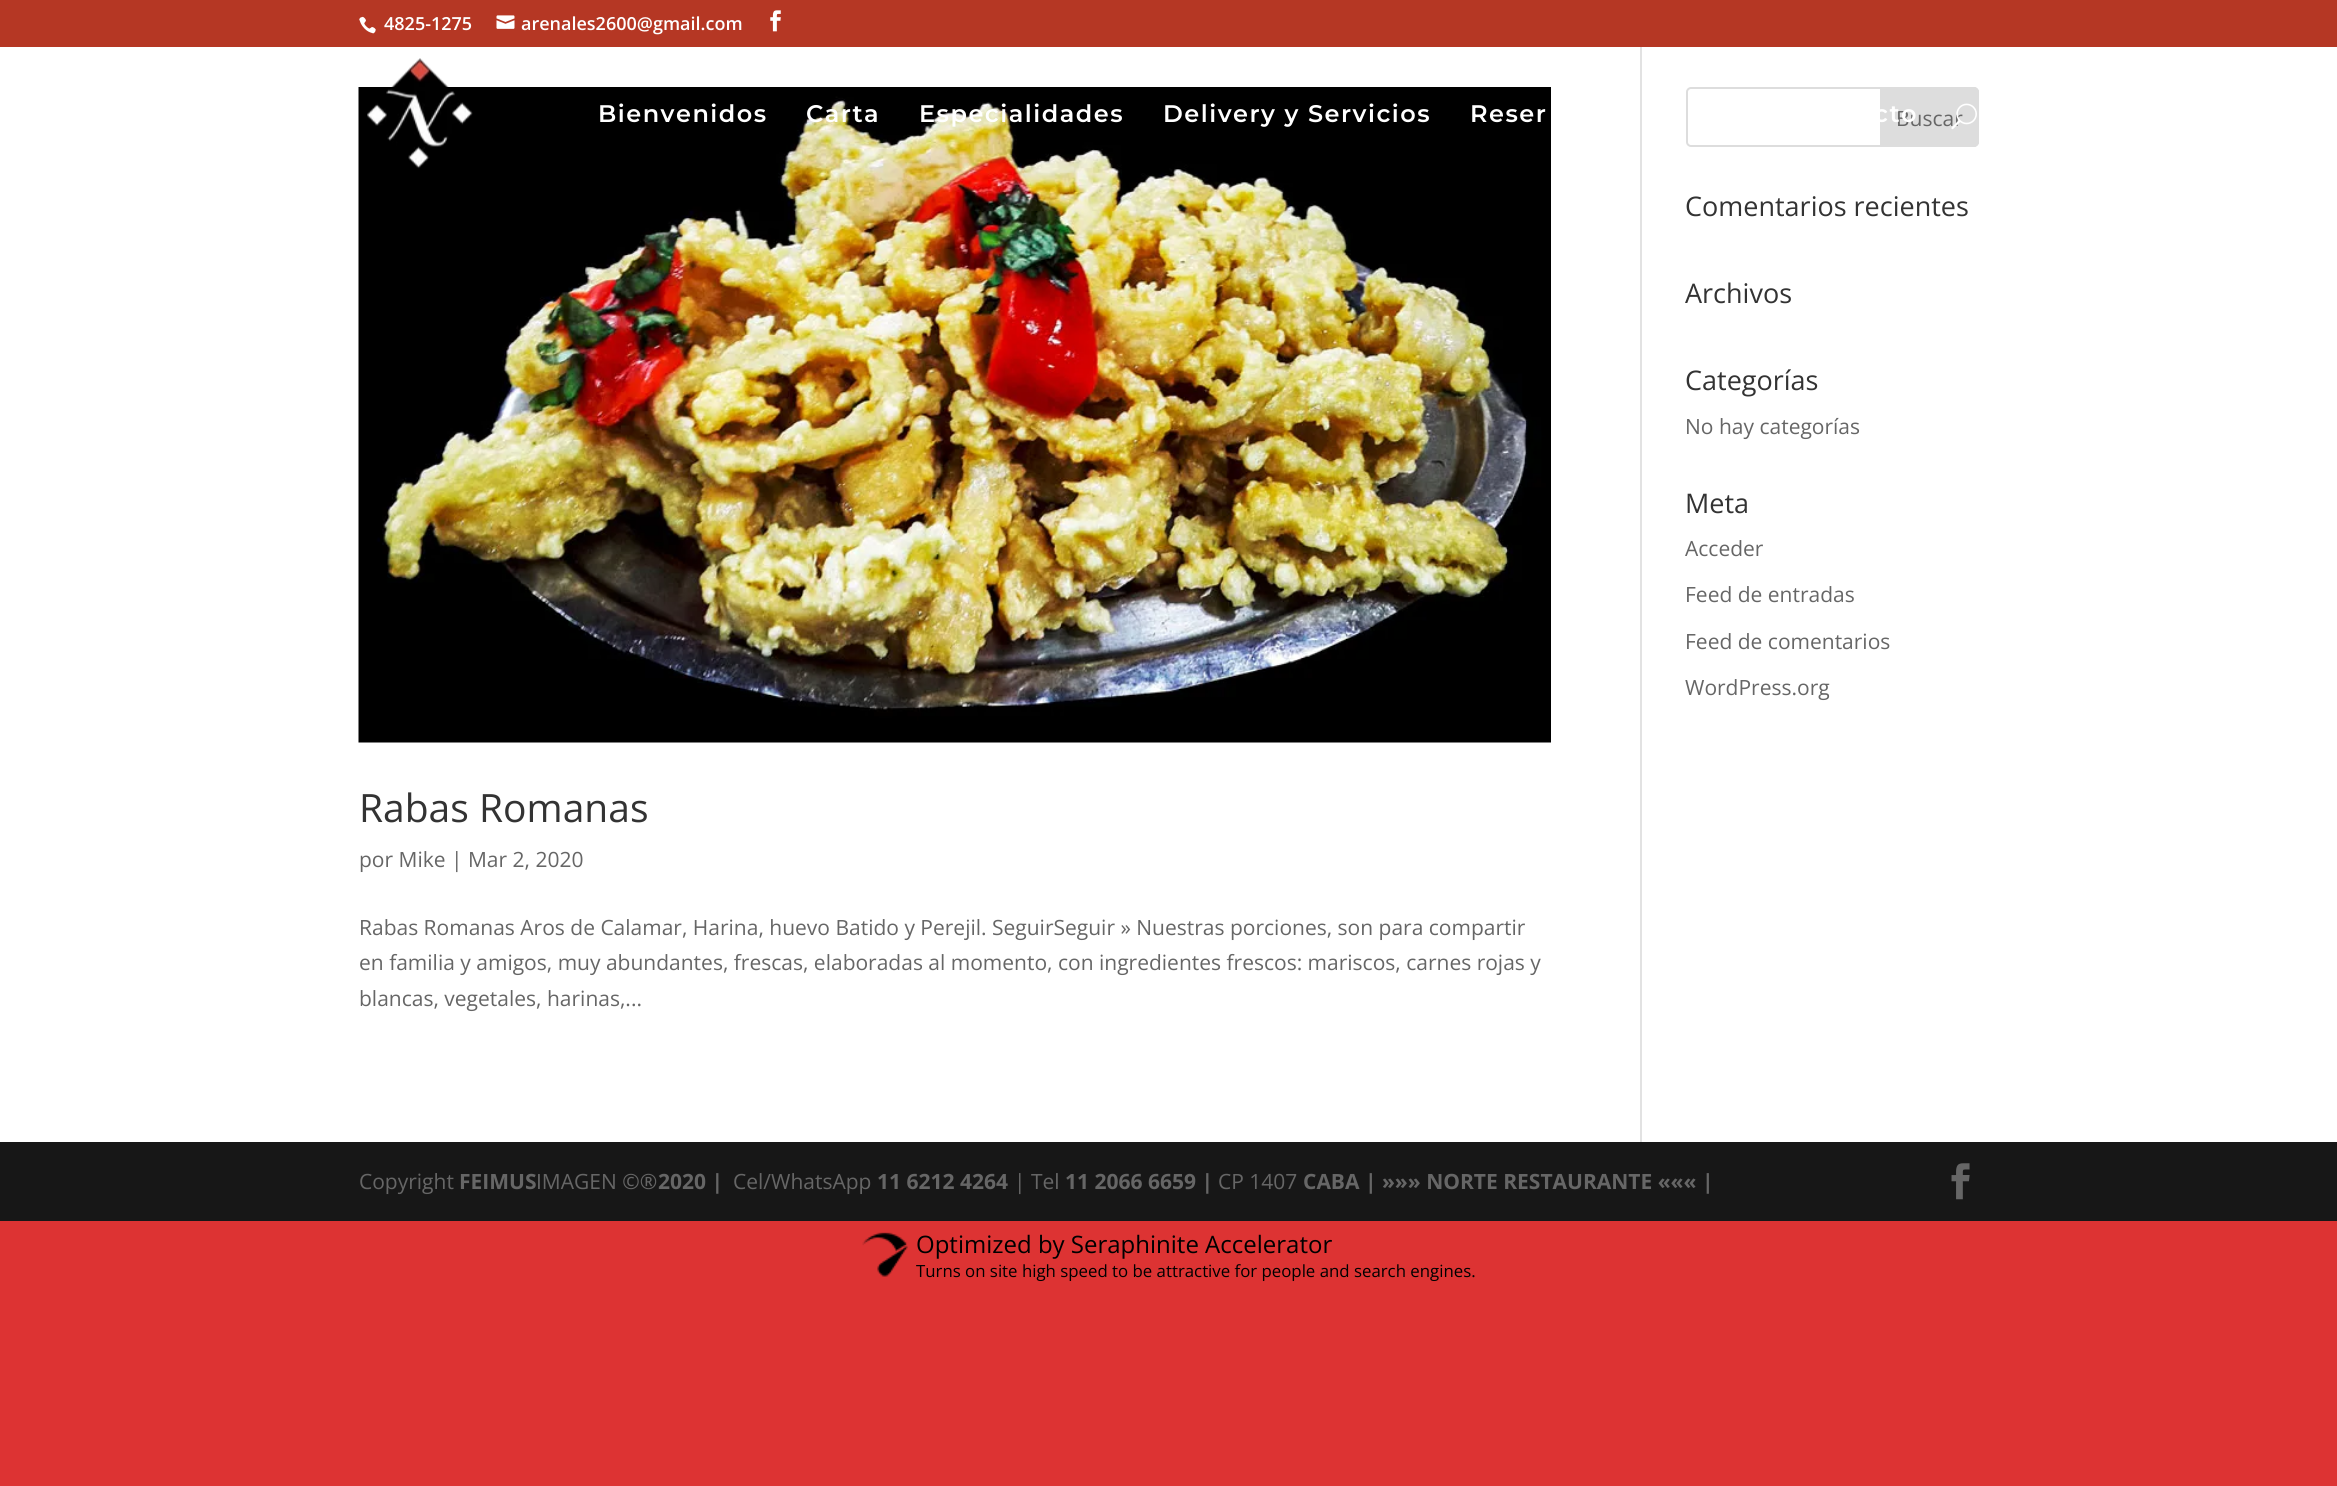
#include <cairo.h>
#include <math.h>
#include <stddef.h>


static void spaced_text(cairo_t *cr, double x, double y, const char *s, double letter, double word) {
    cairo_move_to(cr, x, y);
    while (*s) {
        char ch[5] = {0};
        int n = 0;
        do ch[n++] = *s++; while ((*s & 0xC0) == 0x80);
        cairo_show_text(cr, ch);
        cairo_rel_move_to(cr, letter + word * (*ch == ' '), 0);
    }
}

static void round_rect(cairo_t *cr, double x, double y, double w, double h, double r) {
    cairo_new_sub_path(cr);
    cairo_arc(cr, x + w - r, y + h - r, r, 0, M_PI / 2);
    cairo_arc(cr, x + r, y + h - r, r, M_PI / 2, M_PI);
    cairo_arc(cr, x + r, y + r, r, M_PI, 1.5 * M_PI);
    cairo_arc(cr, x + w - r, y + r, r, 1.5 * M_PI, 2 * M_PI);
    cairo_close_path(cr);
}

static void picture(cairo_t *cr, const char *path, double x, double y, double w, double h) {
    cairo_surface_t *image = cairo_image_surface_create_from_png(path);
    cairo_save(cr);
    cairo_set_source_surface(cr, image, x, y);
    cairo_rectangle(cr, x, y, w, h);
    cairo_fill(cr);
    cairo_restore(cr);
    cairo_surface_destroy(image);
}

int main(void) {
    cairo_surface_t *surface = cairo_image_surface_create(CAIRO_FORMAT_RGB24, 2337, 1486);
    cairo_t *cr = cairo_create(surface);
    cairo_font_options_t *options = cairo_font_options_create();
    cairo_font_options_set_hint_metrics(options, CAIRO_HINT_METRICS_OFF);
    cairo_font_options_set_hint_style(options, CAIRO_HINT_STYLE_NONE);
    cairo_set_font_options(cr, options);
    cairo_set_miter_limit(cr, 4);
    cairo_set_source_rgb(cr, 0.867, 0.2, 0.2);
    cairo_paint(cr);
    cairo_set_source_rgb(cr, 0.71, 0.216, 0.141);
    cairo_rectangle(cr, 0, 0, 2337, 47);
    cairo_fill(cr);
    picture(cr, "img1.png", 359, 16, 17, 18);
    cairo_select_font_face(cr, "Open Sans SemiBold", CAIRO_FONT_SLANT_NORMAL, CAIRO_FONT_WEIGHT_NORMAL);
    cairo_set_font_size(cr, 18);
    cairo_set_source_rgb(cr, 1, 1, 1);
    cairo_move_to(cr, 384, 30);
    cairo_show_text(cr, "4825-1275");
    picture(cr, "img2.png", 496, 15, 19, 14);
    cairo_move_to(cr, 521, 30);
    cairo_show_text(cr, "arenales2600@gmail.com");
    picture(cr, "img3.png", 770, 10, 11, 22);
    cairo_rectangle(cr, 0, 47, 2337, 1095);
    cairo_fill(cr);
    picture(cr, "img6.png", 358, 87, 1193, 656);
    picture(cr, "img4.png", 367, 58, 106, 111);
    cairo_select_font_face(cr, "Montserrat SemiBold", CAIRO_FONT_SLANT_NORMAL, CAIRO_FONT_WEIGHT_NORMAL);
    cairo_set_font_size(cr, 24);
    spaced_text(cr, 598, 122, "Bienvenidos", 1.5, 0);
    spaced_text(cr, 806, 122, "Carta", 1.5, 0);
    spaced_text(cr, 919, 122, "Especialidades", 1.5, 0);
    spaced_text(cr, 1163, 122, "Delivery y Servicios", 1.5, 0);
    spaced_text(cr, 1470, 122, "Reser", 1.5, 0);
    round_rect(cr, 1687, 88, 291, 58, 4);
    cairo_set_source_rgb(cr, 0.867, 0.867, 0.867);
    cairo_stroke(cr);
    cairo_new_path(cr);
    cairo_move_to(cr, 1881, 88);
    cairo_line_to(cr, 1974, 88);
    cairo_curve_to(cr, 1976, 88, 1978, 90, 1978, 92);
    cairo_line_to(cr, 1978, 142);
    cairo_curve_to(cr, 1978, 144, 1976, 146, 1974, 146);
    cairo_line_to(cr, 1881, 146);
    cairo_close_path(cr);
    cairo_fill_preserve(cr);
    cairo_stroke(cr);
    cairo_select_font_face(cr, "Open Sans", CAIRO_FONT_SLANT_NORMAL, CAIRO_FONT_WEIGHT_NORMAL);
    cairo_set_font_size(cr, 21);
    cairo_set_source_rgb(cr, 0.4, 0.4, 0.4);
    cairo_move_to(cr, 1896, 126);
    cairo_show_text(cr, "Buscar");
    cairo_select_font_face(cr, "Montserrat SemiBold", CAIRO_FONT_SLANT_NORMAL, CAIRO_FONT_WEIGHT_NORMAL);
    cairo_set_font_size(cr, 24);
    cairo_set_source_rgb(cr, 1, 1, 1);
    spaced_text(cr, 1874, 122, "cto", 1.5, 0);
    picture(cr, "img5.png", 1951, 103, 26, 27);
    cairo_set_source_rgb(cr, 0.886, 0.886, 0.886);
    cairo_rectangle(cr, 1640, 47, 2, 1095);
    cairo_fill(cr);
    cairo_select_font_face(cr, "Open Sans", CAIRO_FONT_SLANT_NORMAL, CAIRO_FONT_WEIGHT_NORMAL);
    cairo_set_font_size(cr, 27);
    cairo_set_source_rgb(cr, 0.2, 0.2, 0.2);
    cairo_move_to(cr, 1685, 216);
    cairo_show_text(cr, "Comentarios recientes");
    cairo_move_to(cr, 1685, 303);
    cairo_show_text(cr, "Archivos");
    cairo_move_to(cr, 1685, 390);
    cairo_show_text(cr, "Categorías");
    cairo_set_font_size(cr, 21);
    cairo_set_source_rgb(cr, 0.4, 0.4, 0.4);
    cairo_move_to(cr, 1685, 434);
    cairo_show_text(cr, "No hay categorías");
    cairo_set_font_size(cr, 27);
    cairo_set_source_rgb(cr, 0.2, 0.2, 0.2);
    cairo_move_to(cr, 1685, 513);
    cairo_show_text(cr, "Meta");
    cairo_set_font_size(cr, 21);
    cairo_set_source_rgb(cr, 0.4, 0.4, 0.4);
    cairo_move_to(cr, 1685, 556);
    cairo_show_text(cr, "Acceder");
    cairo_move_to(cr, 1685, 602);
    cairo_show_text(cr, "Feed de entradas");
    cairo_move_to(cr, 1685, 649);
    cairo_show_text(cr, "Feed de comentarios");
    cairo_move_to(cr, 1685, 695);
    cairo_show_text(cr, "WordPress.org");
    cairo_set_font_size(cr, 39);
    cairo_set_source_rgb(cr, 0.2, 0.2, 0.2);
    cairo_move_to(cr, 359, 822);
    cairo_show_text(cr, "Rabas Romanas");
    cairo_set_font_size(cr, 21);
    cairo_set_source_rgb(cr, 0.4, 0.4, 0.4);
    cairo_move_to(cr, 359, 867);
    cairo_show_text(cr, "por Mike | Mar 2, 2020");
    cairo_move_to(cr, 359, 935);
    cairo_show_text(cr, "Rabas Romanas Aros de Calamar, Harina, huevo Batido y Perejil. SeguirSeguir » Nuestras porciones, son para compartir");
    cairo_move_to(cr, 359, 970);
    cairo_show_text(cr, "en familia y amigos, muy abundantes, frescas, elaboradas al momento, con ingredientes frescos: mariscos, carnes rojas y");
    cairo_move_to(cr, 359, 1006);
    cairo_show_text(cr, "blancas, vegetales, harinas,...");
    cairo_set_source_rgb(cr, 0.09, 0.09, 0.09);
    cairo_rectangle(cr, 0, 1142, 2337, 79);
    cairo_fill(cr);
    cairo_set_source_rgb(cr, 0.4, 0.4, 0.4);
    cairo_move_to(cr, 359, 1189);
    cairo_show_text(cr, "Copyright");
    cairo_select_font_face(cr, "Open Sans", CAIRO_FONT_SLANT_NORMAL, CAIRO_FONT_WEIGHT_BOLD);
    cairo_move_to(cr, 459, 1189);
    cairo_show_text(cr, "FEIMUS");
    cairo_select_font_face(cr, "Open Sans", CAIRO_FONT_SLANT_NORMAL, CAIRO_FONT_WEIGHT_NORMAL);
    cairo_move_to(cr, 536, 1189);
    cairo_show_text(cr, "IMAGEN ©®");
    cairo_select_font_face(cr, "Open Sans", CAIRO_FONT_SLANT_NORMAL, CAIRO_FONT_WEIGHT_BOLD);
    cairo_move_to(cr, 658, 1189);
    cairo_show_text(cr, "2020 |");
    cairo_select_font_face(cr, "Open Sans", CAIRO_FONT_SLANT_NORMAL, CAIRO_FONT_WEIGHT_NORMAL);
    cairo_move_to(cr, 733, 1189);
    cairo_show_text(cr, "Cel/WhatsApp");
    cairo_select_font_face(cr, "Open Sans", CAIRO_FONT_SLANT_NORMAL, CAIRO_FONT_WEIGHT_BOLD);
    cairo_move_to(cr, 877, 1189);
    cairo_show_text(cr, "11 6212 4264");
    cairo_select_font_face(cr, "Open Sans", CAIRO_FONT_SLANT_NORMAL, CAIRO_FONT_WEIGHT_NORMAL);
    cairo_move_to(cr, 1014, 1189);
    cairo_show_text(cr, "| Tel");
    cairo_select_font_face(cr, "Open Sans", CAIRO_FONT_SLANT_NORMAL, CAIRO_FONT_WEIGHT_BOLD);
    cairo_move_to(cr, 1065, 1189);
    cairo_show_text(cr, "11 2066 6659 |");
    cairo_select_font_face(cr, "Open Sans", CAIRO_FONT_SLANT_NORMAL, CAIRO_FONT_WEIGHT_NORMAL);
    cairo_move_to(cr, 1218, 1189);
    cairo_show_text(cr, "CP 1407");
    cairo_select_font_face(cr, "Open Sans", CAIRO_FONT_SLANT_NORMAL, CAIRO_FONT_WEIGHT_BOLD);
    cairo_move_to(cr, 1303, 1189);
    cairo_show_text(cr, "CABA | »»» NORTE RESTAURANTE ««« |");
    picture(cr, "img7.png", 1951, 1163, 19, 37);
    picture(cr, "img8.png", 862, 1232, 46, 45);
    cairo_select_font_face(cr, "Open Sans", CAIRO_FONT_SLANT_NORMAL, CAIRO_FONT_WEIGHT_NORMAL);
    cairo_set_font_size(cr, 24);
    cairo_set_source_rgb(cr, 0, 0, 0);
    cairo_move_to(cr, 916, 1253);
    cairo_show_text(cr, "Optimized by Seraphinite Accelerator");
    cairo_set_font_size(cr, 16.8);
    cairo_move_to(cr, 916, 1277);
    cairo_show_text(cr, "Turns on site high speed to be attractive for people and search engines.");
    cairo_surface_write_to_png(surface, "page.png");
    cairo_font_options_destroy(options);
    cairo_destroy(cr);
    cairo_surface_destroy(surface);
    return 0;
}
